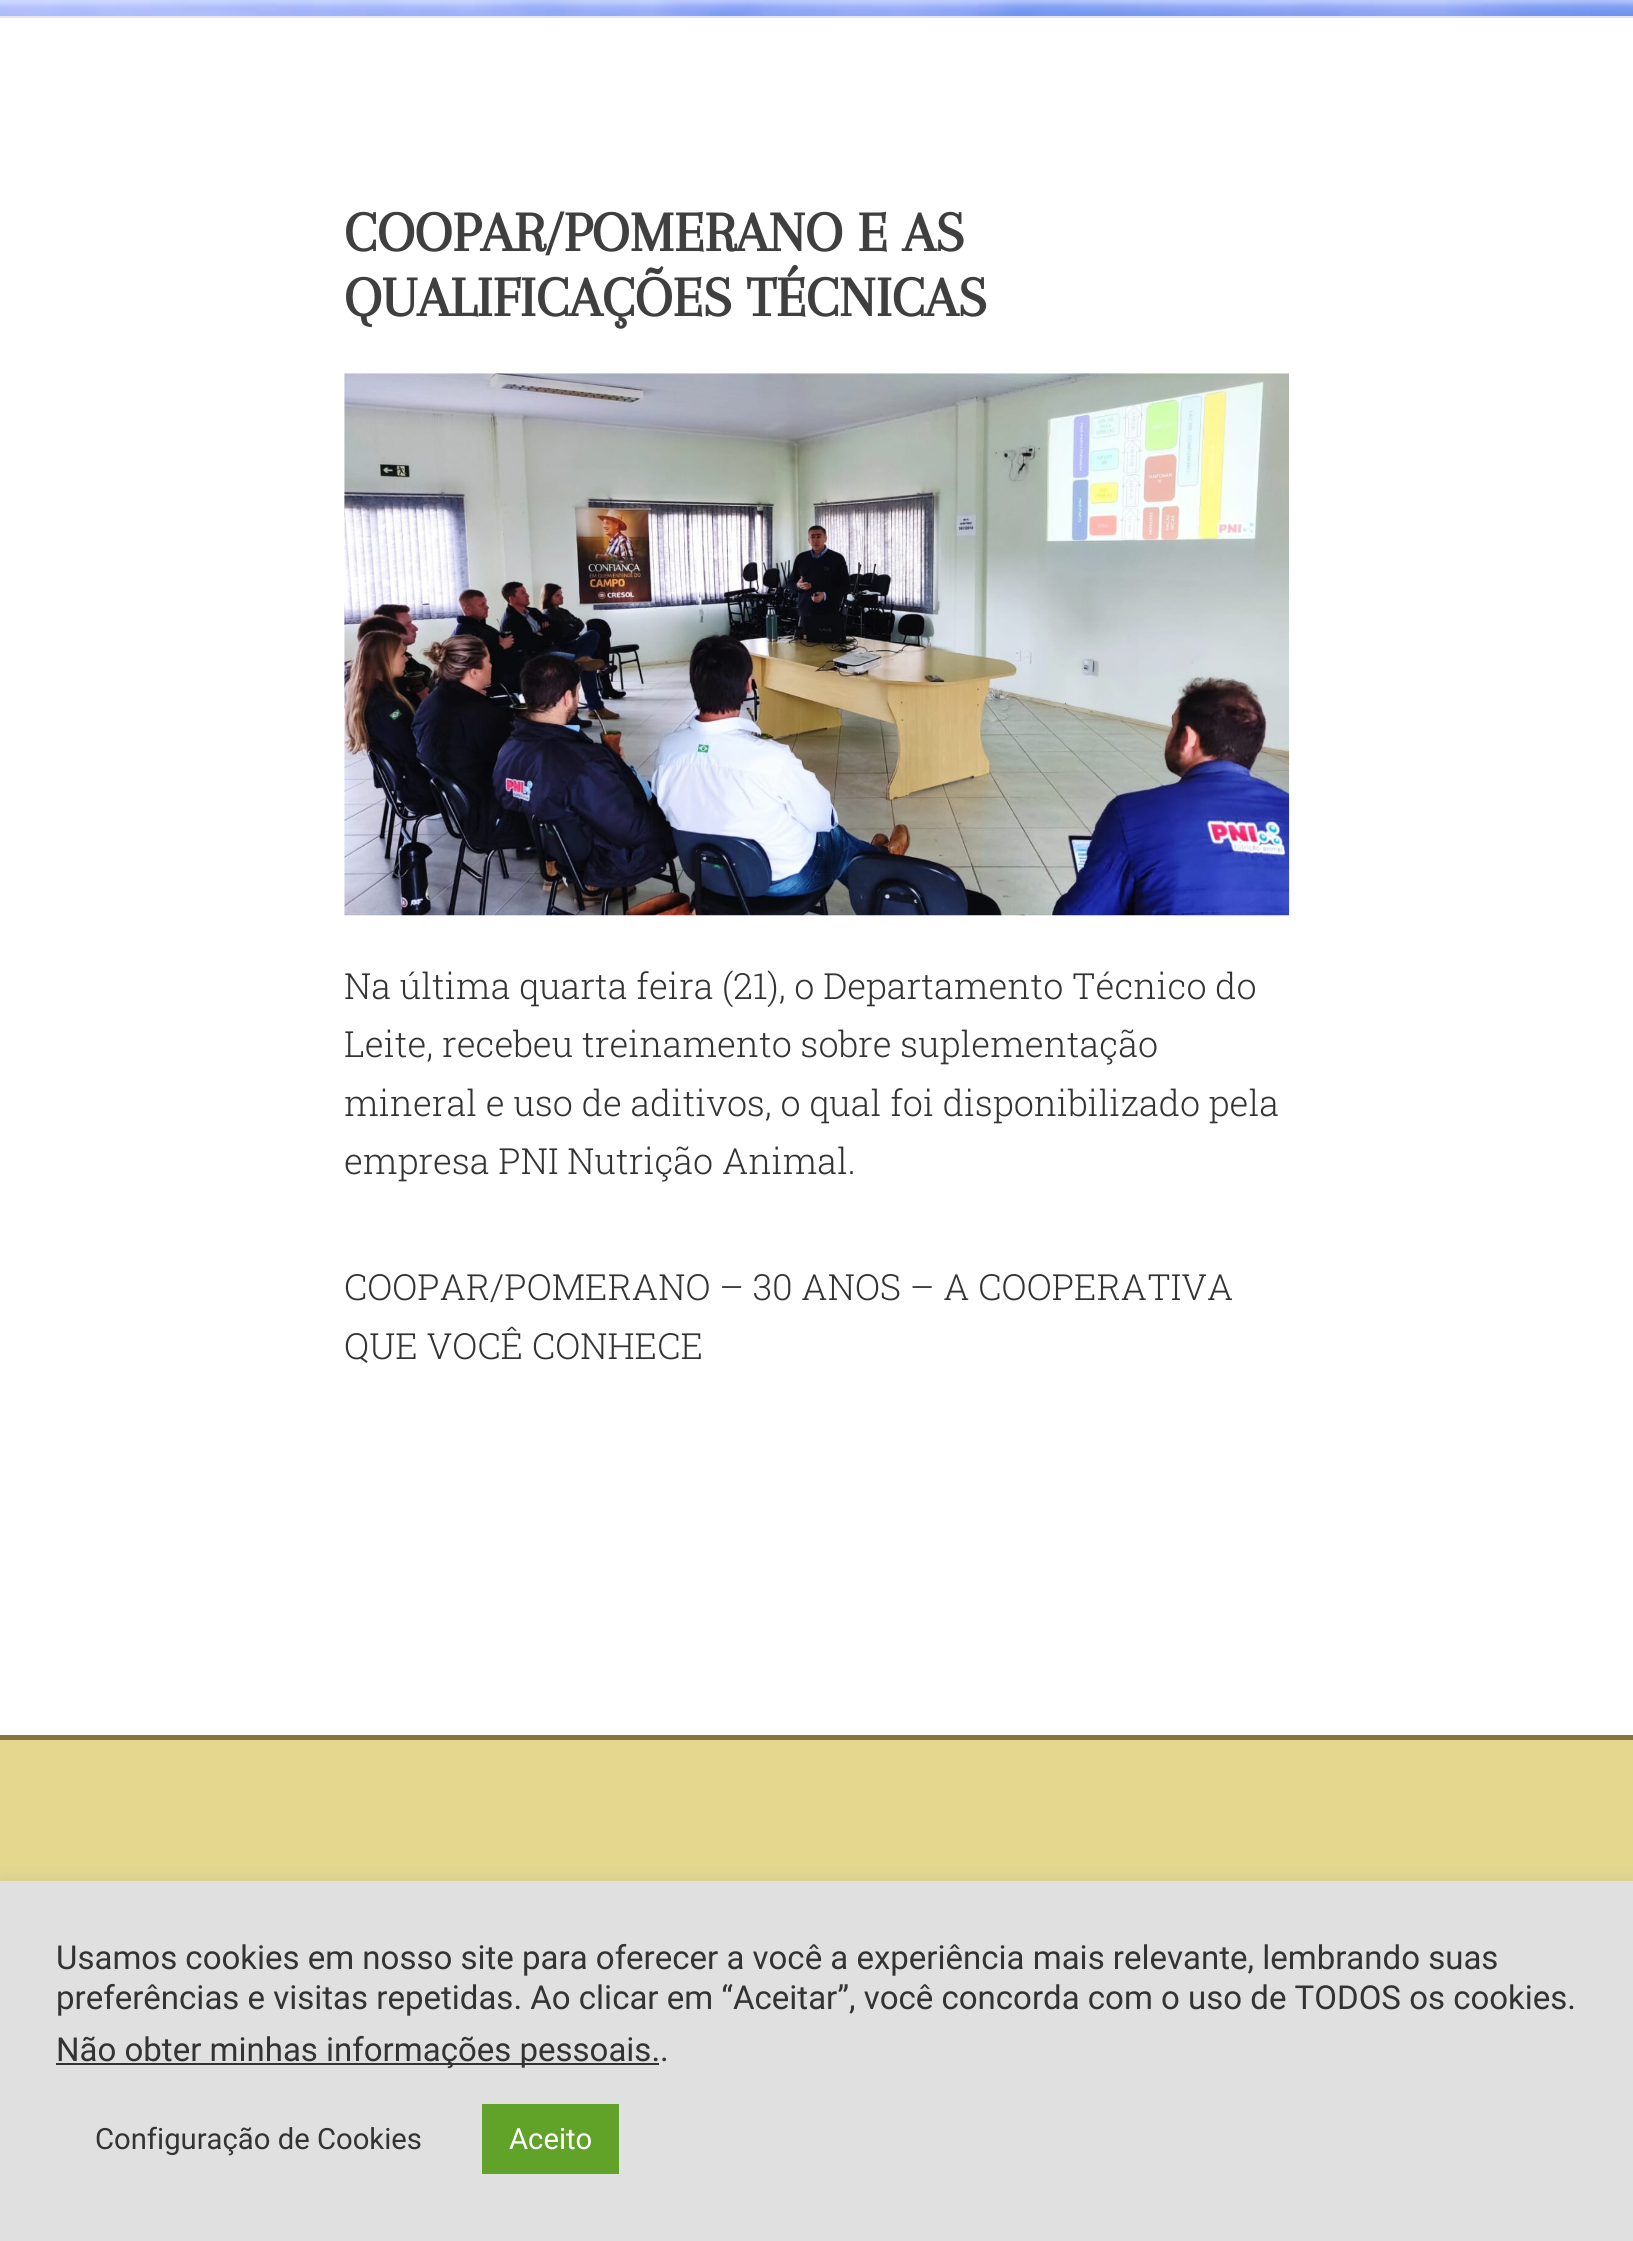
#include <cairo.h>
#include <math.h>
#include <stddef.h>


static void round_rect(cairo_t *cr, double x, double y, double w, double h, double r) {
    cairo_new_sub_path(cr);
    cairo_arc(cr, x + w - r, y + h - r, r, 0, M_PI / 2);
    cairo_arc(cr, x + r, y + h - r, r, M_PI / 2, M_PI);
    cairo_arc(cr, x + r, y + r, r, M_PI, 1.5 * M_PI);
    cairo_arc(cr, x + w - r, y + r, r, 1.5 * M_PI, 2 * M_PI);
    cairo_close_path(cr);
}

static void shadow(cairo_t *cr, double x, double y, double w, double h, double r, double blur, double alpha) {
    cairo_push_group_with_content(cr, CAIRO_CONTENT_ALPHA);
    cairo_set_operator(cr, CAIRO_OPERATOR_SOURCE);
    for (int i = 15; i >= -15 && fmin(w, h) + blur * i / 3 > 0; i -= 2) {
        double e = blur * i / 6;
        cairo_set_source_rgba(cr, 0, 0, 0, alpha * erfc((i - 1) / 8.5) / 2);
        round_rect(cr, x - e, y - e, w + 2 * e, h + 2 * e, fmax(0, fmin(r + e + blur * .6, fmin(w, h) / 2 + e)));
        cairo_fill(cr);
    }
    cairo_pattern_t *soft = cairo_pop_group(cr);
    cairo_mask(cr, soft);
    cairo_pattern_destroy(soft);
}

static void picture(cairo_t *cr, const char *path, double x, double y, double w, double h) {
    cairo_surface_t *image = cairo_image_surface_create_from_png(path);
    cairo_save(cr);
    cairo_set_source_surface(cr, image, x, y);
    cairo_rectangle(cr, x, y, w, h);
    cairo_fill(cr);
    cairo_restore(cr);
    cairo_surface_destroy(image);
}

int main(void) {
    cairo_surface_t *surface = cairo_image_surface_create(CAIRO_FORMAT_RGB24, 1633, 2241);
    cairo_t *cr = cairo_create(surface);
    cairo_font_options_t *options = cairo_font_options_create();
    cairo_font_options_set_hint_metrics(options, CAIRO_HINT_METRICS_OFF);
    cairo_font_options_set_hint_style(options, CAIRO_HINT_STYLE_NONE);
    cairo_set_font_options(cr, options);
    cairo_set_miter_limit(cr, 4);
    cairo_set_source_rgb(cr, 1, 1, 1);
    cairo_paint(cr);
    picture(cr, "img1.png", 0, 0, 1633, 16);
    cairo_set_source_rgb(cr, 0.902, 0.902, 0.902);
    cairo_rectangle(cr, 0, 16, 1633, 2);
    cairo_fill(cr);
    cairo_select_font_face(cr, "Arapey", CAIRO_FONT_SLANT_NORMAL, CAIRO_FONT_WEIGHT_BOLD);
    cairo_set_font_size(cr, 58.5);
    cairo_set_source_rgb(cr, 0.247, 0.247, 0.247);
    cairo_move_to(cr, 344, 251);
    cairo_show_text(cr, "COOPAR/POMERANO E AS");
    cairo_move_to(cr, 344, 316);
    cairo_show_text(cr, "QUALIFICAÇÕES TÉCNICAS");
    picture(cr, "img2.png", 344, 373, 946, 543);
    cairo_select_font_face(cr, "Roboto Slab Light", CAIRO_FONT_SLANT_NORMAL, CAIRO_FONT_WEIGHT_NORMAL);
    cairo_set_font_size(cr, 36);
    cairo_set_source_rgb(cr, 0.2, 0.2, 0.2);
    cairo_move_to(cr, 344, 999);
    cairo_show_text(cr, "Na última quarta feira (21), o Departamento Técnico do");
    cairo_move_to(cr, 344, 1057);
    cairo_show_text(cr, "Leite, recebeu treinamento sobre suplementação");
    cairo_move_to(cr, 344, 1116);
    cairo_show_text(cr, "mineral e uso de aditivos, o qual foi disponibilizado pela");
    cairo_move_to(cr, 344, 1174);
    cairo_show_text(cr, "empresa PNI Nutrição Animal.");
    cairo_move_to(cr, 344, 1300);
    cairo_show_text(cr, "COOPAR/POMERANO – 30 ANOS – A COOPERATIVA");
    cairo_move_to(cr, 344, 1359);
    cairo_show_text(cr, "QUE VOCÊ CONHECE");
    cairo_set_source_rgb(cr, 0.898, 0.847, 0.557);
    cairo_rectangle(cr, 0, 1740, 1633, 141);
    cairo_fill(cr);
    cairo_set_source_rgb(cr, 0.522, 0.459, 0.255);
    cairo_rectangle(cr, 0, 1735, 1633, 5);
    cairo_fill(cr);
    cairo_set_source_rgb(cr, 0.675, 0.671, 0.671);
    shadow(cr, 0, 1879, 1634, 360, 0, 11, 0.3);
    cairo_set_source_rgb(cr, 0.878, 0.878, 0.878);
    cairo_rectangle(cr, 0, 1881, 1633, 360);
    cairo_fill(cr);
    cairo_select_font_face(cr, "Roboto", CAIRO_FONT_SLANT_NORMAL, CAIRO_FONT_WEIGHT_NORMAL);
    cairo_set_font_size(cr, 33);
    cairo_set_source_rgb(cr, 0.2, 0.2, 0.2);
    cairo_move_to(cr, 56, 1969);
    cairo_show_text(cr, "Usamos cookies em nosso site para oferecer a você a experiência mais relevante, lembrando suas");
    cairo_move_to(cr, 56, 2009);
    cairo_show_text(cr, "preferências e visitas repetidas. Ao clicar em “Aceitar”, você concorda com o uso de TODOS os cookies.");
    cairo_rectangle(cr, 56, 2063, 603, 2);
    cairo_fill(cr);
    cairo_move_to(cr, 56, 2061);
    cairo_show_text(cr, "Não obter minhas informações pessoais.");
    cairo_move_to(cr, 660, 2061);
    cairo_show_text(cr, ".");
    cairo_set_font_size(cr, 29.25);
    cairo_move_to(cr, 95, 2149);
    cairo_show_text(cr, "Configuração de Cookies");
    cairo_set_source_rgb(cr, 0.38, 0.635, 0.161);
    cairo_rectangle(cr, 482, 2104, 137, 70);
    cairo_fill(cr);
    cairo_set_source_rgb(cr, 1, 1, 1);
    cairo_move_to(cr, 509, 2149);
    cairo_show_text(cr, "Aceito");
    cairo_surface_write_to_png(surface, "page.png");
    cairo_font_options_destroy(options);
    cairo_destroy(cr);
    cairo_surface_destroy(surface);
    return 0;
}
